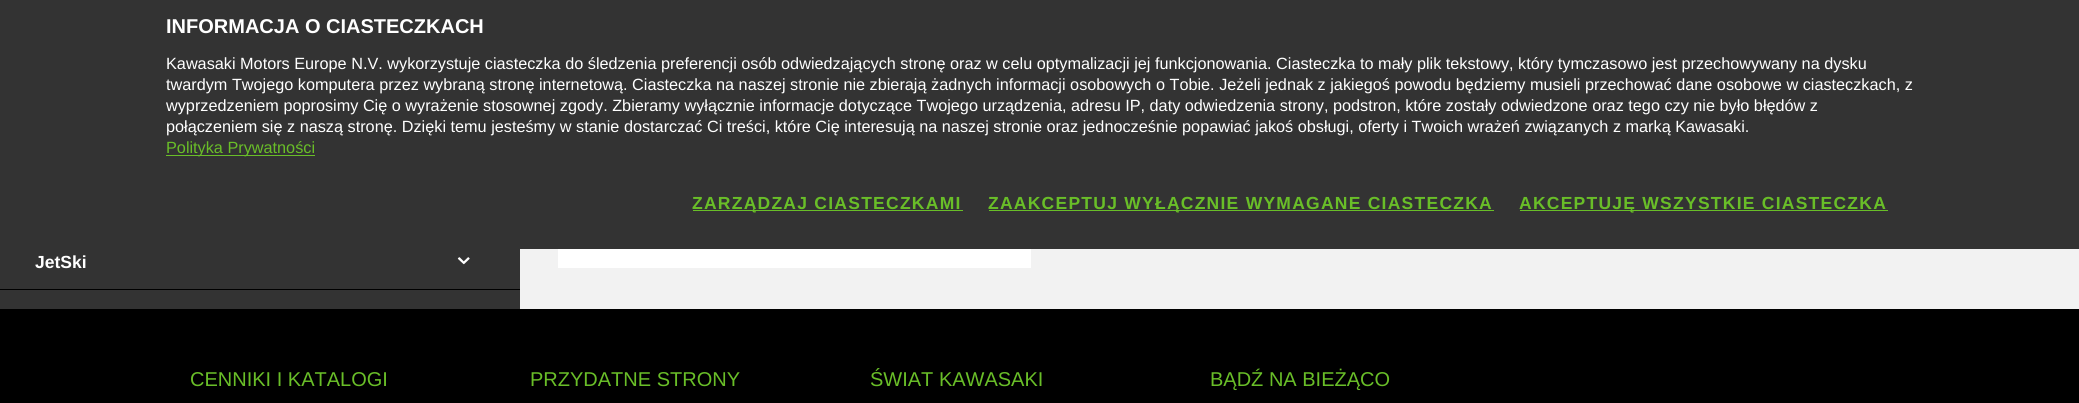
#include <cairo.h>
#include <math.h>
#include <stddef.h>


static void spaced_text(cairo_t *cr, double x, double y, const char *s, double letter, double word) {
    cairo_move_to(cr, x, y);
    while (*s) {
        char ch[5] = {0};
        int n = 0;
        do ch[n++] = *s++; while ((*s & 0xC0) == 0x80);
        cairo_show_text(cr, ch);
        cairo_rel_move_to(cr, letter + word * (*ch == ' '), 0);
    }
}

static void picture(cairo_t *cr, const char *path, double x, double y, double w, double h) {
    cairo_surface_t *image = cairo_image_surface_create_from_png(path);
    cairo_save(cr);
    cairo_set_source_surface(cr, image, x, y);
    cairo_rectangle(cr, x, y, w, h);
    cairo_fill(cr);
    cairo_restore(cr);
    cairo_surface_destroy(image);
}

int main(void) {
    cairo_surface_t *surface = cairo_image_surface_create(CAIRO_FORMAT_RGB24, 2079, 403);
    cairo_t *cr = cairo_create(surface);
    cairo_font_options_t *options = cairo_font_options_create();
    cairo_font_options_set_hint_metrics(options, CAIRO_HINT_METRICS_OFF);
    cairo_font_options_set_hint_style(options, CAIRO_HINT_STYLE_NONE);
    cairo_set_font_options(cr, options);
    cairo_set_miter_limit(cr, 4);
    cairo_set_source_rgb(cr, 0, 0, 0);
    cairo_paint(cr);
    cairo_set_source_rgb(cr, 0.2, 0.2, 0.2);
    cairo_rectangle(cr, 0, 0, 2079, 249);
    cairo_fill(cr);
    cairo_select_font_face(cr, "Liberation Sans", CAIRO_FONT_SLANT_NORMAL, CAIRO_FONT_WEIGHT_BOLD);
    cairo_set_font_size(cr, 20);
    cairo_set_source_rgb(cr, 1, 1, 1);
    cairo_move_to(cr, 166, 33);
    cairo_show_text(cr, "INFORMACJA O CIASTECZKACH");
    cairo_select_font_face(cr, "Liberation Sans", CAIRO_FONT_SLANT_NORMAL, CAIRO_FONT_WEIGHT_NORMAL);
    cairo_set_font_size(cr, 16.25);
    cairo_move_to(cr, 166, 69);
    cairo_show_text(cr, "Kawasaki Motors Europe N.V. wykorzystuje ciasteczka do śledzenia preferencji osób odwiedzających stronę oraz w celu optymalizacji jej funkcjonowania. Ciasteczka to mały plik tekstowy, który tymczasowo jest przechowywany na dysku");
    cairo_move_to(cr, 166, 90);
    cairo_show_text(cr, "twardym Twojego komputera przez wybraną stronę internetową. Ciasteczka na naszej stronie nie zbierają żadnych informacji osobowych o Tobie. Jeżeli jednak z jakiegoś powodu będziemy musieli przechować dane osobowe w ciasteczkach, z");
    cairo_move_to(cr, 166, 111);
    cairo_show_text(cr, "wyprzedzeniem poprosimy Cię o wyrażenie stosownej zgody. Zbieramy wyłącznie informacje dotyczące Twojego urządzenia, adresu IP, daty odwiedzenia strony, podstron, które zostały odwiedzone oraz tego czy nie było błędów z");
    cairo_move_to(cr, 166, 132);
    cairo_show_text(cr, "połączeniem się z naszą stronę. Dzięki temu jesteśmy w stanie dostarczać Ci treści, które Cię interesują na naszej stronie oraz jednocześnie popawiać jakoś obsługi, oferty i Twoich wrażeń związanych z marką Kawasaki.");
    cairo_set_source_rgb(cr, 0.412, 0.745, 0.157);
    cairo_rectangle(cr, 166, 155, 149, 1);
    cairo_fill(cr);
    cairo_move_to(cr, 166, 153);
    cairo_show_text(cr, "Polityka Prywatności");
    cairo_rectangle(cr, 693, 210, 270, 1);
    cairo_fill(cr);
    cairo_select_font_face(cr, "Liberation Sans", CAIRO_FONT_SLANT_NORMAL, CAIRO_FONT_WEIGHT_BOLD);
    cairo_set_font_size(cr, 17.5);
    spaced_text(cr, 692, 209, "ZARZĄDZAJ CIASTECZKAMI", 1.25, 0);
    cairo_rectangle(cr, 989, 210, 505, 1);
    cairo_fill(cr);
    spaced_text(cr, 988, 209, "ZAAKCEPTUJ WYŁĄCZNIE WYMAGANE CIASTECZKA", 1.25, 0);
    cairo_rectangle(cr, 1520, 210, 368, 1);
    cairo_fill(cr);
    spaced_text(cr, 1519, 209, "AKCEPTUJĘ WSZYSTKIE CIASTECZKA", 1.25, 0);
    cairo_set_source_rgb(cr, 0.2, 0.2, 0.2);
    cairo_rectangle(cr, 0, 290, 520, 19);
    cairo_fill(cr);
    cairo_rectangle(cr, 0, 249, 520, 40);
    cairo_fill(cr);
    cairo_set_source_rgb(cr, 1, 1, 1);
    cairo_move_to(cr, 35, 268);
    cairo_show_text(cr, "JetSki");
    picture(cr, "img1.png", 457, 257, 13, 8);
    cairo_set_source_rgb(cr, 0.949, 0.949, 0.949);
    cairo_rectangle(cr, 520, 249, 1559, 60);
    cairo_fill(cr);
    cairo_set_source_rgb(cr, 1, 1, 1);
    cairo_rectangle(cr, 558, 249, 473, 19);
    cairo_fill(cr);
    cairo_select_font_face(cr, "Liberation Sans", CAIRO_FONT_SLANT_NORMAL, CAIRO_FONT_WEIGHT_NORMAL);
    cairo_set_font_size(cr, 20);
    cairo_set_source_rgb(cr, 0.412, 0.745, 0.157);
    cairo_move_to(cr, 190, 386);
    cairo_show_text(cr, "CENNIKI I KATALOGI");
    cairo_move_to(cr, 530, 386);
    cairo_show_text(cr, "PRZYDATNE STRONY");
    cairo_move_to(cr, 870, 386);
    cairo_show_text(cr, "ŚWIAT KAWASAKI");
    cairo_move_to(cr, 1210, 386);
    cairo_show_text(cr, "BĄDŹ NA BIEŻĄCO");
    cairo_surface_write_to_png(surface, "page.png");
    cairo_font_options_destroy(options);
    cairo_destroy(cr);
    cairo_surface_destroy(surface);
    return 0;
}
